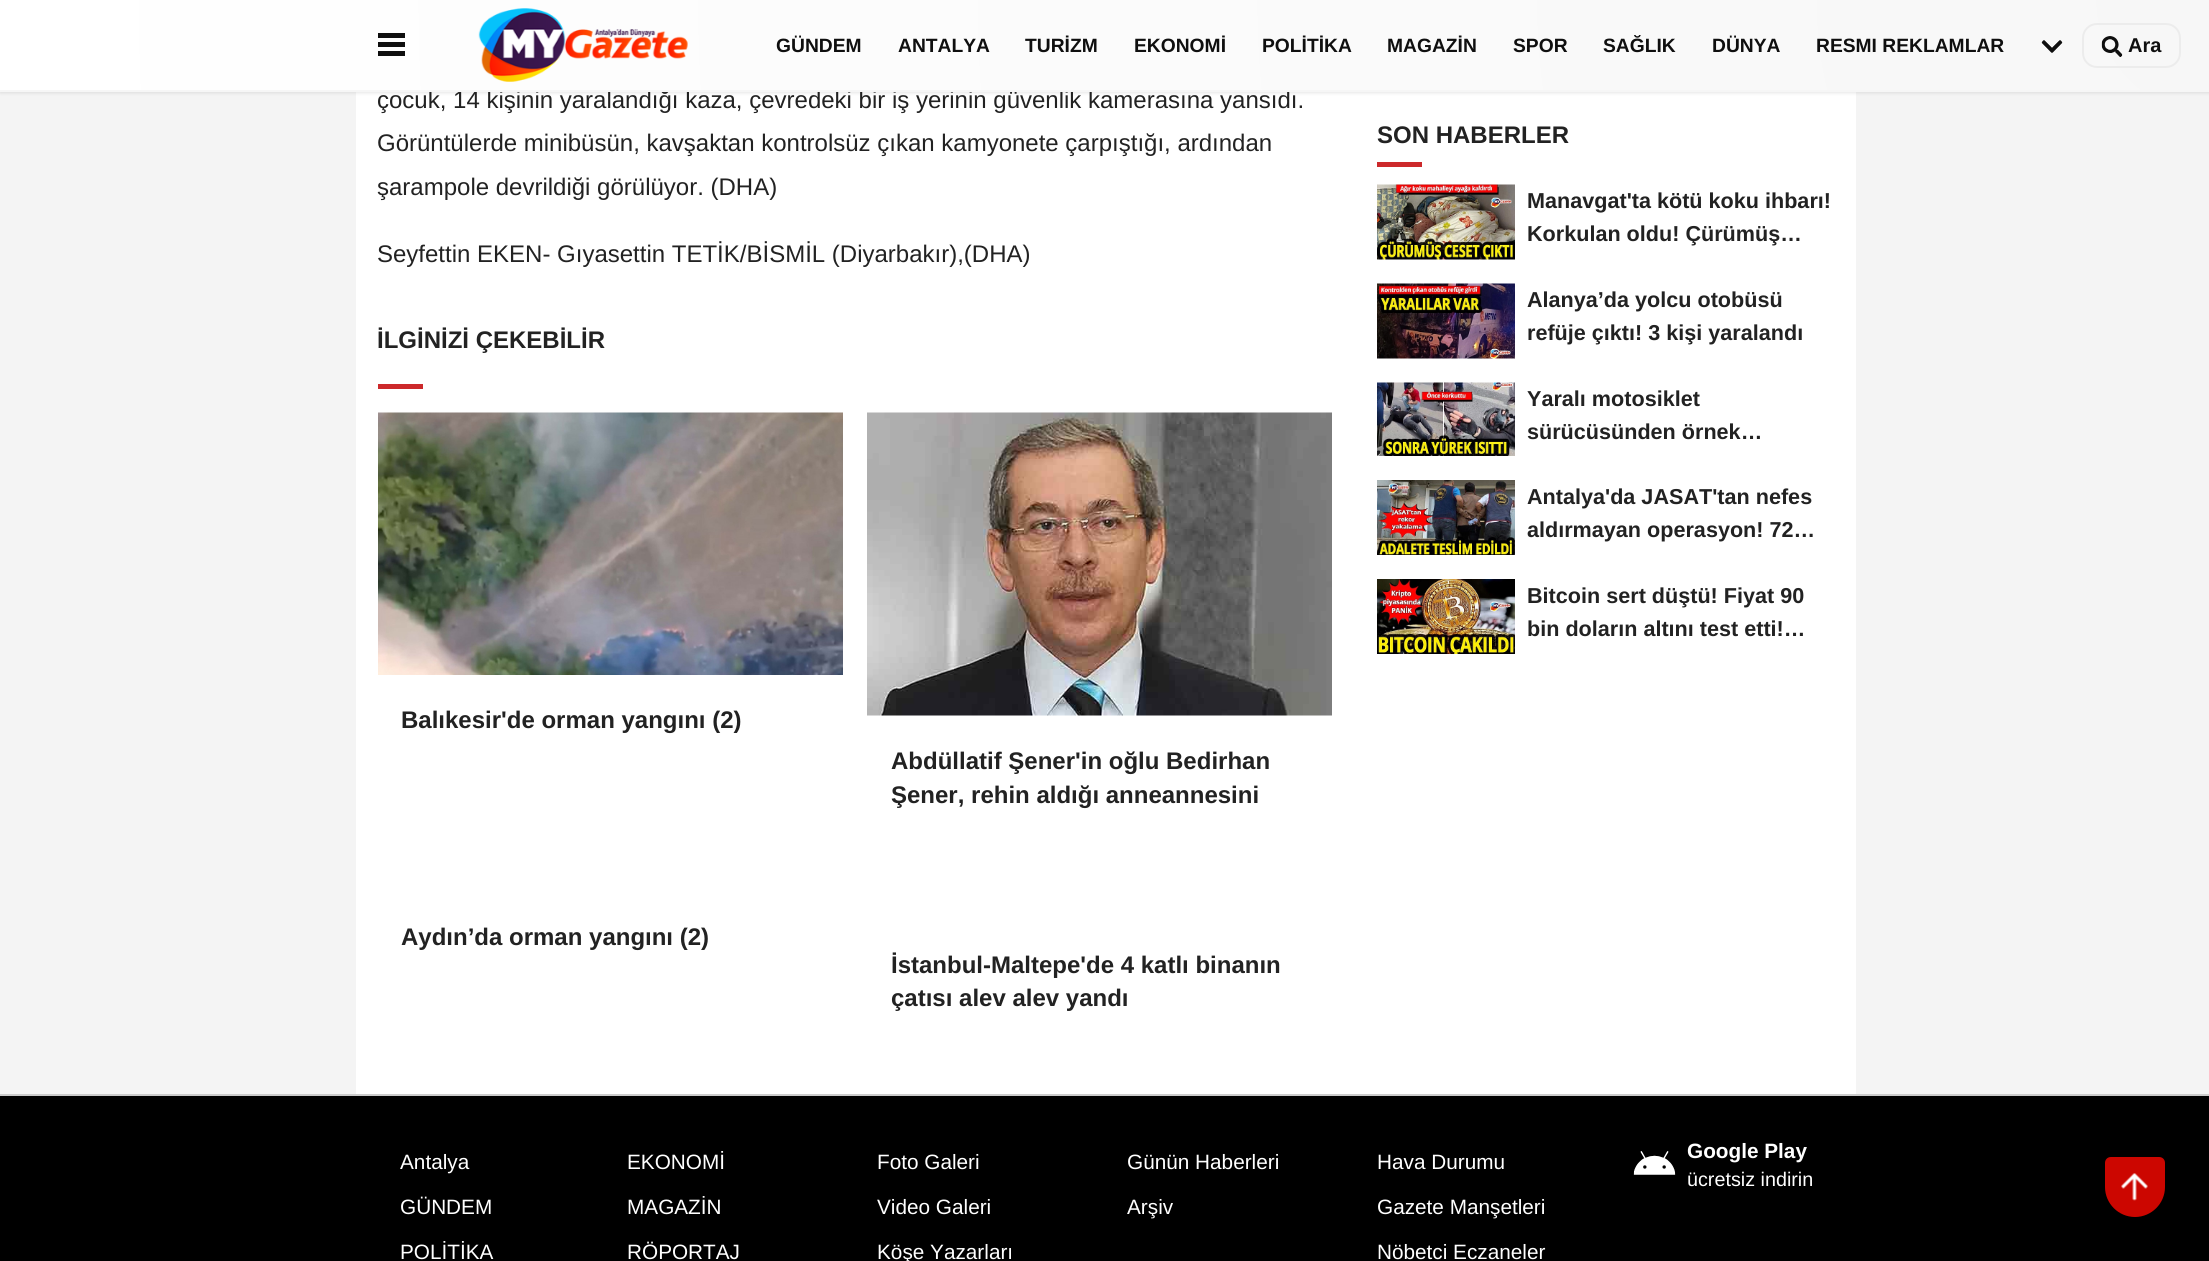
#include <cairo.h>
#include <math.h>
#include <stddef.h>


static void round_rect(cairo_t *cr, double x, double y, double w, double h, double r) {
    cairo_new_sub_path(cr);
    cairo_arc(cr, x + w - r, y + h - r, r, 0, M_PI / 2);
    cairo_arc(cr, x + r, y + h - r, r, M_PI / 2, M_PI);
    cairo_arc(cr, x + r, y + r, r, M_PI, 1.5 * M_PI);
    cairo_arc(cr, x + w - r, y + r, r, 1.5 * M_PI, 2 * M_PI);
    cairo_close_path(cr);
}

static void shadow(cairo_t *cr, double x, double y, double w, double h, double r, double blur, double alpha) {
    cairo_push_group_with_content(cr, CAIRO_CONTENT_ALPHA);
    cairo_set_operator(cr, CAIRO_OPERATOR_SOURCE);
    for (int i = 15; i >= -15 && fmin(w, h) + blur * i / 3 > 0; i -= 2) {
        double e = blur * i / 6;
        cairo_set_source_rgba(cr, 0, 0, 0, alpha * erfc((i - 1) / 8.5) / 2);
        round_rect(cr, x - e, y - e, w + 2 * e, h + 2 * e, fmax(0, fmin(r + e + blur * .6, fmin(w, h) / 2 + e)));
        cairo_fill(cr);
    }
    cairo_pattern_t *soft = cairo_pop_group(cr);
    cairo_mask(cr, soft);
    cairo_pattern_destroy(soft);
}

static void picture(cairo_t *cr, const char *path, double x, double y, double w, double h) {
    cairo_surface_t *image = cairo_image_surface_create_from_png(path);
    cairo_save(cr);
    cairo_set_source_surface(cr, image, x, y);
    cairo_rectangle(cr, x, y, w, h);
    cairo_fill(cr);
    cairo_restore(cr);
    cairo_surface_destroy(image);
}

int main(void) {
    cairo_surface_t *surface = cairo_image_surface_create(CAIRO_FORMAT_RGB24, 2209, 1261);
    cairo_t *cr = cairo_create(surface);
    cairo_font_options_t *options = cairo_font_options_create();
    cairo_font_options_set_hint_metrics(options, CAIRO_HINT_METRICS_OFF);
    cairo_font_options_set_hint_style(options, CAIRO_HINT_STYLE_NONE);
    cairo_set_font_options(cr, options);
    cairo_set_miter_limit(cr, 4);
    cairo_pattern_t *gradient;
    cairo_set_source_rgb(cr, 0.957, 0.957, 0.957);
    cairo_paint(cr);
    cairo_set_source_rgb(cr, 1, 1, 1);
    cairo_rectangle(cr, 356, 92, 1500, 1002);
    cairo_fill(cr);
    cairo_set_source_rgb(cr, 0, 0, 0);
    shadow(cr, 0, 2, 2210, 91, 0, 1.5, 0.1);
    gradient = cairo_pattern_create_radial(2210, 0, 0, 2210, 0, 2211);
    cairo_pattern_add_color_stop_rgba(gradient, 0, 0.969, 0.969, 0.969, 1);
    cairo_pattern_add_color_stop_rgba(gradient, 1, 1, 1, 1, 1);
    cairo_set_source(cr, gradient);
    cairo_pattern_destroy(gradient);
    cairo_rectangle(cr, 0, 0, 2209, 90);
    cairo_fill(cr);
    cairo_select_font_face(cr, "Liberation Sans", CAIRO_FONT_SLANT_NORMAL, CAIRO_FONT_WEIGHT_NORMAL);
    cairo_set_font_size(cr, 24);
    cairo_set_source_rgb(cr, 0.133, 0.133, 0.133);
    cairo_move_to(cr, 377, 108);
    cairo_show_text(cr, "çocuk, 14 kişinin yaralandığı kaza, çevredeki bir iş yerinin güvenlik kamerasına yansıdı.");
    cairo_set_source_rgb(cr, 0.961, 0.961, 0.961);
    cairo_rectangle(cr, 0, 90, 2209, 2);
    cairo_fill(cr);
    cairo_set_source_rgb(cr, 0.059, 0.059, 0.059);
    cairo_rectangle(cr, 378, 33, 27, 5);
    cairo_fill(cr);
    cairo_rectangle(cr, 378, 42, 27, 5);
    cairo_fill(cr);
    cairo_rectangle(cr, 378, 51, 27, 5);
    cairo_fill(cr);
    picture(cr, "img1.png", 478, 8, 210, 74);
    cairo_select_font_face(cr, "Liberation Sans", CAIRO_FONT_SLANT_NORMAL, CAIRO_FONT_WEIGHT_BOLD);
    cairo_set_font_size(cr, 19.25);
    cairo_move_to(cr, 776, 52);
    cairo_show_text(cr, "GÜNDEM");
    cairo_move_to(cr, 898, 52);
    cairo_show_text(cr, "ANTALYA");
    cairo_move_to(cr, 1025, 52);
    cairo_show_text(cr, "TURİZM");
    cairo_move_to(cr, 1134, 52);
    cairo_show_text(cr, "EKONOMİ");
    cairo_move_to(cr, 1262, 52);
    cairo_show_text(cr, "POLİTİKA");
    cairo_move_to(cr, 1387, 52);
    cairo_show_text(cr, "MAGAZİN");
    cairo_move_to(cr, 1513, 52);
    cairo_show_text(cr, "SPOR");
    cairo_move_to(cr, 1603, 52);
    cairo_show_text(cr, "SAĞLIK");
    cairo_move_to(cr, 1712, 52);
    cairo_show_text(cr, "DÜNYA");
    cairo_move_to(cr, 1816, 52);
    cairo_show_text(cr, "RESMI REKLAMLAR");
    picture(cr, "img2.png", 2041, 40, 22, 13);
    round_rect(cr, 2083, 24, 97, 43, 14);
    cairo_set_source_rgb(cr, 0.925, 0.925, 0.925);
    cairo_stroke(cr);
    picture(cr, "img3.png", 2101, 36, 22, 21);
    cairo_set_font_size(cr, 20);
    cairo_set_source_rgb(cr, 0.059, 0.059, 0.059);
    cairo_move_to(cr, 2128, 52);
    cairo_show_text(cr, "Ara");
    cairo_select_font_face(cr, "Liberation Sans", CAIRO_FONT_SLANT_NORMAL, CAIRO_FONT_WEIGHT_NORMAL);
    cairo_set_font_size(cr, 24);
    cairo_set_source_rgb(cr, 0.133, 0.133, 0.133);
    cairo_move_to(cr, 377, 151);
    cairo_show_text(cr, "Görüntülerde minibüsün, kavşaktan kontrolsüz çıkan kamyonete çarpıştığı, ardından");
    cairo_move_to(cr, 377, 195);
    cairo_show_text(cr, "şarampole devrildiği görülüyor. (DHA)");
    cairo_move_to(cr, 377, 262);
    cairo_show_text(cr, "Seyfettin EKEN- Gıyasettin TETİK/BİSMİL (Diyarbakır),(DHA)");
    cairo_select_font_face(cr, "Liberation Sans", CAIRO_FONT_SLANT_NORMAL, CAIRO_FONT_WEIGHT_BOLD);
    cairo_move_to(cr, 377, 348);
    cairo_show_text(cr, "İLGİNİZİ ÇEKEBİLİR");
    cairo_set_source_rgb(cr, 0.8, 0.161, 0.169);
    cairo_rectangle(cr, 378, 384, 45, 5);
    cairo_fill(cr);
    picture(cr, "img4.png", 378, 412, 465, 263);
    cairo_set_source_rgb(cr, 0.133, 0.133, 0.133);
    cairo_move_to(cr, 401, 728);
    cairo_show_text(cr, "Balıkesir'de orman yangını (2)");
    picture(cr, "img5.png", 867, 412, 465, 304);
    cairo_move_to(cr, 891, 769);
    cairo_show_text(cr, "Abdüllatif Şener'in oğlu Bedirhan");
    cairo_move_to(cr, 891, 803);
    cairo_show_text(cr, "Şener, rehin aldığı anneannesini");
    cairo_move_to(cr, 401, 945);
    cairo_show_text(cr, "Aydın’da orman yangını (2)");
    cairo_move_to(cr, 891, 973);
    cairo_show_text(cr, "İstanbul-Maltepe'de 4 katlı binanın");
    cairo_move_to(cr, 891, 1006);
    cairo_show_text(cr, "çatısı alev alev yandı");
    cairo_move_to(cr, 1377, 143);
    cairo_show_text(cr, "SON HABERLER");
    cairo_set_source_rgb(cr, 0.8, 0.161, 0.169);
    cairo_rectangle(cr, 1377, 162, 45, 5);
    cairo_fill(cr);
    picture(cr, "img6.png", 1377, 184, 138, 76);
    cairo_set_font_size(cr, 21.6);
    cairo_set_source_rgb(cr, 0.133, 0.133, 0.133);
    cairo_move_to(cr, 1527, 208);
    cairo_show_text(cr, "Manavgat'ta kötü koku ihbarı!");
    cairo_move_to(cr, 1527, 241);
    cairo_show_text(cr, "Korkulan oldu! Çürümüş…");
    picture(cr, "img7.png", 1377, 283, 138, 76);
    cairo_move_to(cr, 1527, 307);
    cairo_show_text(cr, "Alanya’da yolcu otobüsü");
    cairo_move_to(cr, 1527, 340);
    cairo_show_text(cr, "refüje çıktı! 3 kişi yaralandı");
    picture(cr, "img8.png", 1377, 382, 138, 74);
    cairo_move_to(cr, 1527, 406);
    cairo_show_text(cr, "Yaralı motosiklet");
    cairo_move_to(cr, 1527, 439);
    cairo_show_text(cr, "sürücüsünden örnek…");
    picture(cr, "img9.png", 1377, 480, 138, 75);
    cairo_move_to(cr, 1527, 504);
    cairo_show_text(cr, "Antalya'da JASAT'tan nefes");
    cairo_move_to(cr, 1527, 537);
    cairo_show_text(cr, "aldırmayan operasyon! 72…");
    picture(cr, "img10.png", 1377, 579, 138, 75);
    cairo_move_to(cr, 1527, 603);
    cairo_show_text(cr, "Bitcoin sert düştü! Fiyat 90");
    cairo_move_to(cr, 1527, 636);
    cairo_show_text(cr, "bin doların altını test etti!…");
    cairo_set_source_rgb(cr, 0, 0, 0);
    cairo_rectangle(cr, 0, 1096, 2209, 165);
    cairo_fill(cr);
    cairo_set_source_rgb(cr, 0.8, 0.8, 0.8);
    cairo_rectangle(cr, 0, 1094, 2209, 2);
    cairo_fill(cr);
    cairo_select_font_face(cr, "Liberation Sans", CAIRO_FONT_SLANT_NORMAL, CAIRO_FONT_WEIGHT_NORMAL);
    cairo_set_font_size(cr, 20.75);
    cairo_set_source_rgb(cr, 1, 1, 1);
    cairo_move_to(cr, 400, 1169);
    cairo_show_text(cr, "Antalya");
    cairo_move_to(cr, 627, 1169);
    cairo_show_text(cr, "EKONOMİ");
    cairo_move_to(cr, 400, 1214);
    cairo_show_text(cr, "GÜNDEM");
    cairo_move_to(cr, 627, 1214);
    cairo_show_text(cr, "MAGAZİN");
    cairo_move_to(cr, 400, 1259);
    cairo_show_text(cr, "POLİTİKA");
    cairo_move_to(cr, 627, 1259);
    cairo_show_text(cr, "RÖPORTAJ");
    cairo_move_to(cr, 877, 1169);
    cairo_show_text(cr, "Foto Galeri");
    cairo_move_to(cr, 877, 1214);
    cairo_show_text(cr, "Video Galeri");
    cairo_move_to(cr, 877, 1259);
    cairo_show_text(cr, "Köşe Yazarları");
    cairo_move_to(cr, 1127, 1169);
    cairo_show_text(cr, "Günün Haberleri");
    cairo_move_to(cr, 1127, 1214);
    cairo_show_text(cr, "Arşiv");
    cairo_move_to(cr, 1377, 1169);
    cairo_show_text(cr, "Hava Durumu");
    cairo_move_to(cr, 1377, 1214);
    cairo_show_text(cr, "Gazete Manşetleri");
    cairo_move_to(cr, 1377, 1259);
    cairo_show_text(cr, "Nöbetci Eczaneler");
    picture(cr, "img11.png", 1633, 1151, 43, 24);
    cairo_select_font_face(cr, "Liberation Sans", CAIRO_FONT_SLANT_NORMAL, CAIRO_FONT_WEIGHT_BOLD);
    cairo_move_to(cr, 1687, 1158);
    cairo_show_text(cr, "Google Play");
    cairo_select_font_face(cr, "Liberation Sans", CAIRO_FONT_SLANT_NORMAL, CAIRO_FONT_WEIGHT_NORMAL);
    cairo_set_font_size(cr, 19.75);
    cairo_move_to(cr, 1687, 1186);
    cairo_show_text(cr, "ücretsiz indirin");
    cairo_set_source_rgb(cr, 0.8, 0.027, 0);
    cairo_new_path(cr);
    cairo_move_to(cr, 2111, 1157);
    cairo_line_to(cr, 2159, 1157);
    cairo_curve_to(cr, 2162.5, 1157, 2165, 1159.5, 2165, 1163);
    cairo_line_to(cr, 2165, 1187);
    cairo_curve_to(cr, 2165, 1203.5, 2151.5, 1217, 2135, 1217);
    cairo_curve_to(cr, 2118.5, 1217, 2105, 1203.5, 2105, 1187);
    cairo_line_to(cr, 2105, 1163);
    cairo_curve_to(cr, 2105, 1159.5, 2107.5, 1157, 2111, 1157);
    cairo_close_path(cr);
    cairo_fill(cr);
    picture(cr, "img12.png", 2121, 1173, 27, 28);
    cairo_surface_write_to_png(surface, "page.png");
    cairo_font_options_destroy(options);
    cairo_destroy(cr);
    cairo_surface_destroy(surface);
    return 0;
}
